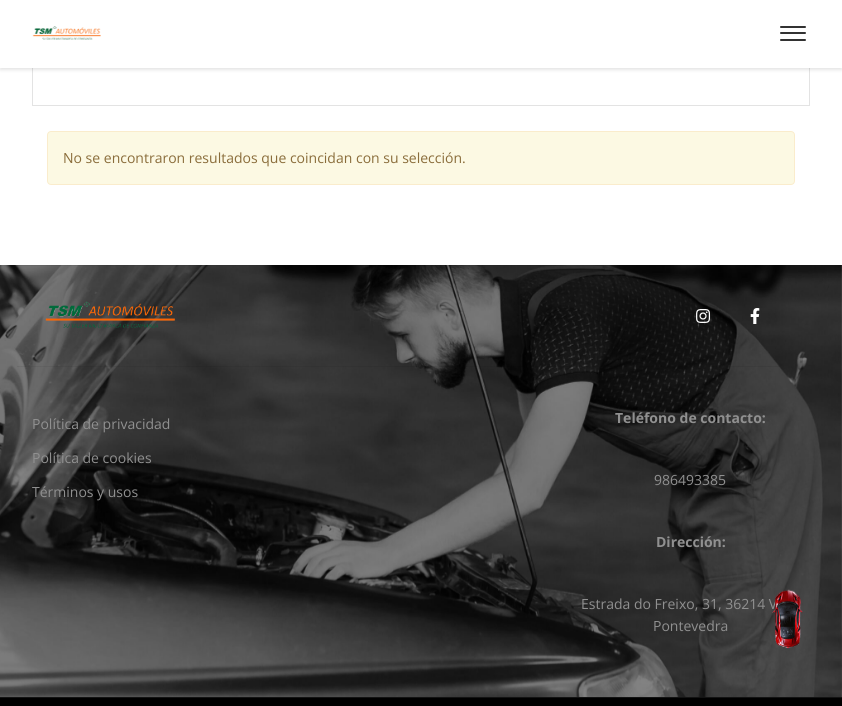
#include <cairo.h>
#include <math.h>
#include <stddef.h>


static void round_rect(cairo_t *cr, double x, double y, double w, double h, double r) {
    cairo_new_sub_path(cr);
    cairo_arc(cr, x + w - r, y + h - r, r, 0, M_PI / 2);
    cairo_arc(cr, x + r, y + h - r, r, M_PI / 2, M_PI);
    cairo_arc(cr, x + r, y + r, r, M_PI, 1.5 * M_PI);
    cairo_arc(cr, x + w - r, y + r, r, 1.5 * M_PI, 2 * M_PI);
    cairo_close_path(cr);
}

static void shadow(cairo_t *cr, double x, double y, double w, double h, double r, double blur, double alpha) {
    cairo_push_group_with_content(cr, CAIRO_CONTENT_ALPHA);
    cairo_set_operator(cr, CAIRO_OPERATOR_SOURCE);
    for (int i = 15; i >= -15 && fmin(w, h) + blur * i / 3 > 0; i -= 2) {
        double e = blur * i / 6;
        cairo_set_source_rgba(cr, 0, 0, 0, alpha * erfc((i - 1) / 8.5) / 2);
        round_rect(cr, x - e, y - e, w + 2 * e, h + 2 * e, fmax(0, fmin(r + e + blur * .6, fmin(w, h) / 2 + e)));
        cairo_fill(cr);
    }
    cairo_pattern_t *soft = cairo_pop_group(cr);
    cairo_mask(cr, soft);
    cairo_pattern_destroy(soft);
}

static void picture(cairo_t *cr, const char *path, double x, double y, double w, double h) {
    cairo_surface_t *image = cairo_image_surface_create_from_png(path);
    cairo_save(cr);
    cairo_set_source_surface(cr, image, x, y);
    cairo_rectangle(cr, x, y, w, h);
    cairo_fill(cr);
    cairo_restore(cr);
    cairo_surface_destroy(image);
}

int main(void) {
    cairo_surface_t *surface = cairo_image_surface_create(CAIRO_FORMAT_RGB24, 842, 706);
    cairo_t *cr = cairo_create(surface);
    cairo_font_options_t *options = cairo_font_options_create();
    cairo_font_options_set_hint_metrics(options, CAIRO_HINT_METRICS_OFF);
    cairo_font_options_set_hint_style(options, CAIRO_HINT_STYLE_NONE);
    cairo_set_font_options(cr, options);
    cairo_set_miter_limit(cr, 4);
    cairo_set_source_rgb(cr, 1, 1, 1);
    cairo_paint(cr);
    cairo_rectangle(cr, 32.5, -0.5, 777, 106);
    cairo_set_source_rgb(cr, 0.89, 0.89, 0.89);
    cairo_set_line_width(cr, 1);
    cairo_stroke(cr);
    cairo_set_source_rgb(cr, 0, 0, 0);
    shadow(cr, 0, 2, 842, 68, 0, 1.5, 0.1);
    cairo_set_source_rgb(cr, 1, 1, 1);
    cairo_rectangle(cr, 0, 0, 842, 68);
    cairo_fill(cr);
    picture(cr, "img1.png", 32, 26, 69, 14);
    cairo_set_source_rgb(cr, 0.196, 0.196, 0.196);
    round_rect(cr, 780, 26, 26, 2, 1);
    cairo_fill(cr);
    round_rect(cr, 780, 32, 26, 2, 1);
    cairo_fill(cr);
    round_rect(cr, 780, 39, 26, 2, 1);
    cairo_fill(cr);
    cairo_set_source_rgb(cr, 0.988, 0.973, 0.89);
    round_rect(cr, 47.5, 131.5, 747, 53, 3.5);
    cairo_fill_preserve(cr);
    cairo_set_source_rgb(cr, 0.98, 0.922, 0.8);
    cairo_stroke(cr);
    cairo_select_font_face(cr, "Open Sans", CAIRO_FONT_SLANT_NORMAL, CAIRO_FONT_WEIGHT_NORMAL);
    cairo_set_font_size(cr, 14);
    cairo_set_source_rgb(cr, 0.541, 0.427, 0.231);
    cairo_move_to(cr, 63, 163);
    cairo_show_text(cr, "No se encontraron resultados que coincidan con su selección.");
    cairo_set_source_rgb(cr, 0.502, 0.502, 0.502);
    shadow(cr, 772, 632, 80, 60, 2, 2.5, 1);
    picture(cr, "img2.png", 0, 265, 842, 432);
    cairo_set_source_rgba(cr, 0, 0, 0, 0.06);
    cairo_rectangle(cr, 17, 265, 593, 1);
    cairo_fill(cr);
    cairo_rectangle(cr, 17, 366, 763, 1);
    cairo_fill(cr);
    picture(cr, "img3.png", 45, 301, 130, 27);
    picture(cr, "img4.png", 696, 309, 15, 14);
    picture(cr, "img5.png", 750, 308, 10, 16);
    cairo_set_source_rgb(cr, 0.565, 0.565, 0.565);
    cairo_move_to(cr, 32, 429);
    cairo_show_text(cr, "Política de privacidad");
    cairo_move_to(cr, 32, 463);
    cairo_show_text(cr, "Política de cookies");
    cairo_move_to(cr, 32, 497);
    cairo_show_text(cr, "Términos y usos");
    cairo_select_font_face(cr, "Open Sans", CAIRO_FONT_SLANT_NORMAL, CAIRO_FONT_WEIGHT_BOLD);
    cairo_move_to(cr, 615, 423);
    cairo_show_text(cr, "Teléfono de contacto:");
    cairo_select_font_face(cr, "Open Sans", CAIRO_FONT_SLANT_NORMAL, CAIRO_FONT_WEIGHT_NORMAL);
    cairo_move_to(cr, 654, 485);
    cairo_show_text(cr, "986493385");
    cairo_select_font_face(cr, "Open Sans", CAIRO_FONT_SLANT_NORMAL, CAIRO_FONT_WEIGHT_BOLD);
    cairo_move_to(cr, 656, 547);
    cairo_show_text(cr, "Dirección:");
    cairo_select_font_face(cr, "Open Sans", CAIRO_FONT_SLANT_NORMAL, CAIRO_FONT_WEIGHT_NORMAL);
    cairo_move_to(cr, 581, 609);
    cairo_show_text(cr, "Estrada do Freixo, 31, 36214 V");
    cairo_move_to(cr, 653, 631);
    cairo_show_text(cr, "Pontevedra");
    cairo_set_source_rgb(cr, 0, 0, 0);
    cairo_rectangle(cr, 0, 698, 842, 8);
    cairo_fill(cr);
    cairo_set_source_rgb(cr, 0.078, 0.078, 0.078);
    cairo_rectangle(cr, 0, 697, 842, 1);
    cairo_fill(cr);
    picture(cr, "img6.png", 772, 589, 31, 59);
    cairo_surface_write_to_png(surface, "page.png");
    cairo_font_options_destroy(options);
    cairo_destroy(cr);
    cairo_surface_destroy(surface);
    return 0;
}
